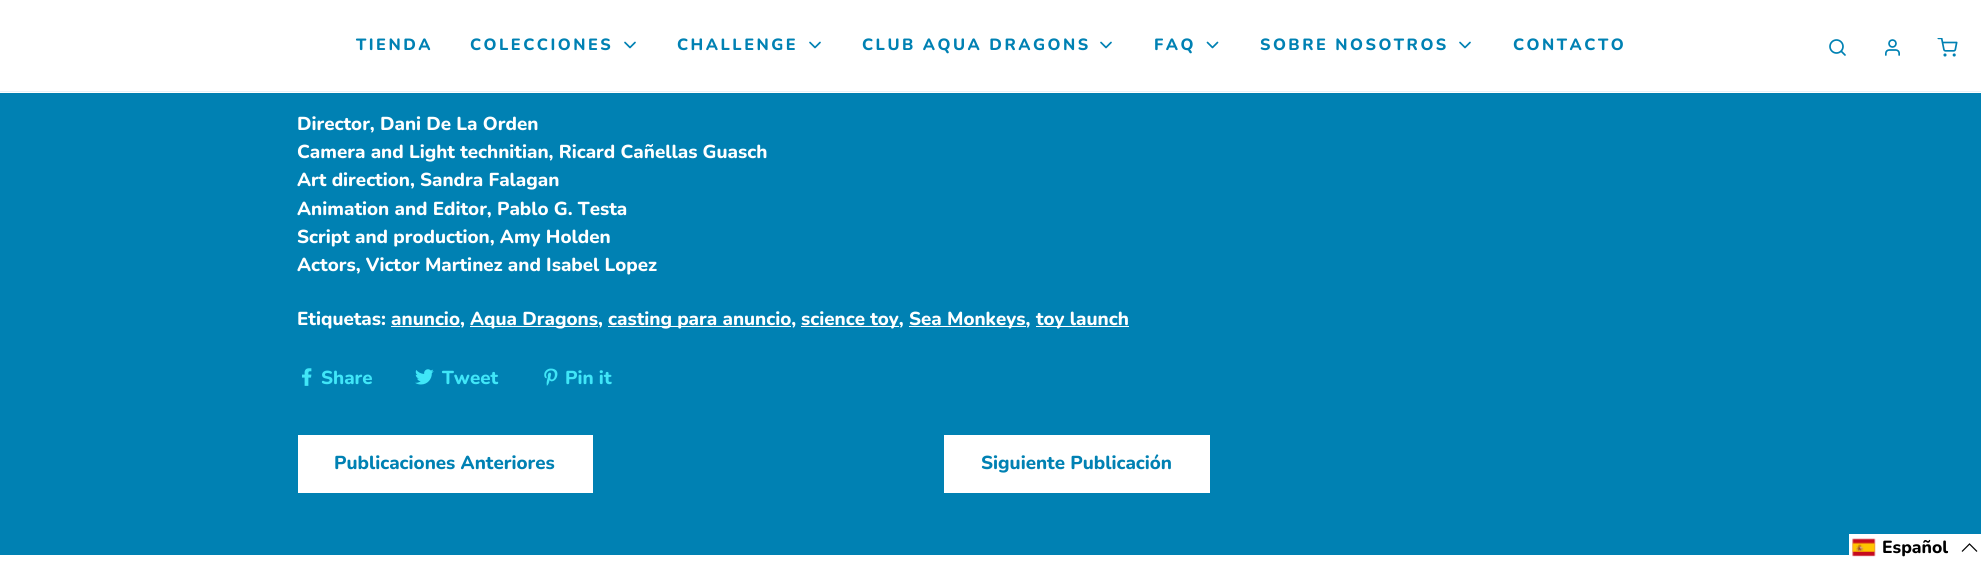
#include <cairo.h>
#include <math.h>
#include <stddef.h>


static void spaced_text(cairo_t *cr, double x, double y, const char *s, double letter, double word) {
    cairo_move_to(cr, x, y);
    while (*s) {
        char ch[5] = {0};
        int n = 0;
        do ch[n++] = *s++; while ((*s & 0xC0) == 0x80);
        cairo_show_text(cr, ch);
        cairo_rel_move_to(cr, letter + word * (*ch == ' '), 0);
    }
}

static void picture(cairo_t *cr, const char *path, double x, double y, double w, double h) {
    cairo_surface_t *image = cairo_image_surface_create_from_png(path);
    cairo_save(cr);
    cairo_set_source_surface(cr, image, x, y);
    cairo_rectangle(cr, x, y, w, h);
    cairo_fill(cr);
    cairo_restore(cr);
    cairo_surface_destroy(image);
}

int main(void) {
    cairo_surface_t *surface = cairo_image_surface_create(CAIRO_FORMAT_RGB24, 1981, 562);
    cairo_t *cr = cairo_create(surface);
    cairo_font_options_t *options = cairo_font_options_create();
    cairo_font_options_set_hint_metrics(options, CAIRO_HINT_METRICS_OFF);
    cairo_font_options_set_hint_style(options, CAIRO_HINT_STYLE_NONE);
    cairo_set_font_options(cr, options);
    cairo_set_miter_limit(cr, 4);
    cairo_set_source_rgb(cr, 0, 0.506, 0.702);
    cairo_paint(cr);
    cairo_set_source_rgb(cr, 1, 1, 1);
    cairo_rectangle(cr, 0, 0, 1981, 93);
    cairo_fill(cr);
    cairo_set_source_rgb(cr, 0.902, 0.949, 0.969);
    cairo_rectangle(cr, 0, 91, 1981, 1);
    cairo_fill(cr);
    cairo_select_font_face(cr, "Nunito ExtraBold", CAIRO_FONT_SLANT_NORMAL, CAIRO_FONT_WEIGHT_NORMAL);
    cairo_set_font_size(cr, 16.25);
    cairo_set_source_rgb(cr, 0, 0.506, 0.702);
    spaced_text(cr, 356, 50, "TIENDA", 2.5, 0);
    spaced_text(cr, 470, 50, "COLECCIONES", 2.5, 0);
    cairo_new_path(cr);
    cairo_move_to(cr, 625, 42.5);
    cairo_line_to(cr, 630, 47.5);
    cairo_line_to(cr, 635, 42.5);
    cairo_set_line_width(cr, 1.7);
    cairo_set_line_cap(cr, CAIRO_LINE_CAP_ROUND);
    cairo_set_line_join(cr, CAIRO_LINE_JOIN_ROUND);
    cairo_stroke(cr);
    spaced_text(cr, 677, 50, "CHALLENGE", 2.5, 0);
    cairo_new_path(cr);
    cairo_move_to(cr, 810, 42.5);
    cairo_line_to(cr, 815, 47.5);
    cairo_line_to(cr, 820, 42.5);
    cairo_stroke(cr);
    spaced_text(cr, 862, 50, "CLUB AQUA DRAGONS", 2.5, 0);
    cairo_new_path(cr);
    cairo_move_to(cr, 1101, 42.5);
    cairo_line_to(cr, 1106, 47.5);
    cairo_line_to(cr, 1111, 42.5);
    cairo_stroke(cr);
    spaced_text(cr, 1154, 50, "FAQ", 2.5, 0);
    cairo_new_path(cr);
    cairo_move_to(cr, 1207.5, 42.5);
    cairo_line_to(cr, 1212.5, 47.5);
    cairo_line_to(cr, 1217.5, 42.5);
    cairo_stroke(cr);
    spaced_text(cr, 1260, 50, "SOBRE NOSOTROS", 2.5, 0);
    cairo_new_path(cr);
    cairo_move_to(cr, 1460, 42.5);
    cairo_line_to(cr, 1465, 47.5);
    cairo_line_to(cr, 1470, 42.5);
    cairo_stroke(cr);
    spaced_text(cr, 1513, 50, "CONTACTO", 2.5, 0);
    cairo_new_path(cr);
    cairo_arc(cr, 1836.5, 46.5, 6.5, 0, 2 * M_PI);
    cairo_set_line_cap(cr, CAIRO_LINE_CAP_BUTT);
    cairo_set_line_join(cr, CAIRO_LINE_JOIN_MITER);
    cairo_stroke(cr);
    cairo_new_path(cr);
    cairo_move_to(cr, 1845, 55);
    cairo_line_to(cr, 1841.5, 51.5);
    cairo_set_line_cap(cr, CAIRO_LINE_CAP_ROUND);
    cairo_set_line_join(cr, CAIRO_LINE_JOIN_ROUND);
    cairo_stroke(cr);
    picture(cr, "img1.png", 1885, 39, 15, 17);
    picture(cr, "img2.png", 1937, 38, 21, 19);
    cairo_set_font_size(cr, 18.75);
    cairo_set_source_rgb(cr, 1, 1, 1);
    cairo_move_to(cr, 297, 130);
    cairo_show_text(cr, "Director, Dani De La Orden");
    cairo_move_to(cr, 297, 158);
    cairo_show_text(cr, "Camera and Light technitian, Ricard Cañellas Guasch");
    cairo_move_to(cr, 297, 186);
    cairo_show_text(cr, "Art direction, Sandra Falagan");
    cairo_move_to(cr, 297, 215);
    cairo_show_text(cr, "Animation and Editor, Pablo G. Testa");
    cairo_move_to(cr, 297, 243);
    cairo_show_text(cr, "Script and production, Amy Holden");
    cairo_move_to(cr, 297, 271);
    cairo_show_text(cr, "Actors, Victor Martinez and Isabel Lopez");
    cairo_move_to(cr, 297, 325);
    cairo_show_text(cr, "Etiquetas: anuncio,");
    cairo_rectangle(cr, 470, 326, 128, 1);
    cairo_fill(cr);
    cairo_move_to(cr, 470, 325);
    cairo_show_text(cr, "Aqua Dragons,");
    cairo_rectangle(cr, 608, 326, 183, 1);
    cairo_fill(cr);
    cairo_move_to(cr, 608, 325);
    cairo_show_text(cr, "casting para anuncio,");
    cairo_rectangle(cr, 801, 326, 98, 1);
    cairo_fill(cr);
    cairo_move_to(cr, 801, 325);
    cairo_show_text(cr, "science toy,");
    cairo_rectangle(cr, 909, 326, 117, 1);
    cairo_fill(cr);
    cairo_move_to(cr, 909, 325);
    cairo_show_text(cr, "Sea Monkeys,");
    cairo_rectangle(cr, 1036, 326, 93, 1);
    cairo_fill(cr);
    cairo_move_to(cr, 1036, 325);
    cairo_show_text(cr, "toy launch");
    cairo_rectangle(cr, 391, 326, 69, 1);
    cairo_fill(cr);
    picture(cr, "img3.png", 302, 368, 10, 18);
    cairo_set_source_rgb(cr, 0.251, 0.902, 0.969);
    cairo_move_to(cr, 321, 384);
    cairo_show_text(cr, "Share");
    picture(cr, "img4.png", 415, 369, 19, 16);
    cairo_move_to(cr, 442, 384);
    cairo_show_text(cr, "Tweet");
    picture(cr, "img5.png", 544, 368, 14, 18);
    cairo_move_to(cr, 565, 384);
    cairo_show_text(cr, "Pin it");
    cairo_set_source_rgb(cr, 1, 1, 1);
    cairo_rectangle(cr, 298, 435, 295, 58);
    cairo_fill(cr);
    cairo_set_source_rgb(cr, 0, 0.506, 0.702);
    cairo_move_to(cr, 334, 469);
    cairo_show_text(cr, "Publicaciones Anteriores");
    cairo_set_source_rgb(cr, 1, 1, 1);
    cairo_rectangle(cr, 944, 435, 266, 58);
    cairo_fill(cr);
    cairo_set_source_rgb(cr, 0, 0.506, 0.702);
    cairo_move_to(cr, 981, 469);
    cairo_show_text(cr, "Siguiente Publicación");
    cairo_set_source_rgb(cr, 1, 1, 1);
    cairo_rectangle(cr, 0, 555, 1849, 7);
    cairo_fill(cr);
    cairo_rectangle(cr, 1849, 534, 132, 28);
    cairo_fill(cr);
    picture(cr, "img6.png", 1852, 538, 24, 19);
    cairo_set_font_size(cr, 17.5);
    cairo_set_source_rgb(cr, 0, 0, 0);
    cairo_move_to(cr, 1882, 553);
    cairo_show_text(cr, "Español");
    cairo_new_path(cr);
    cairo_move_to(cr, 1977, 551.5);
    cairo_line_to(cr, 1969.5, 544);
    cairo_line_to(cr, 1962, 551.5);
    cairo_set_line_width(cr, 1.2);
    cairo_set_line_cap(cr, CAIRO_LINE_CAP_BUTT);
    cairo_set_line_join(cr, CAIRO_LINE_JOIN_MITER);
    cairo_stroke(cr);
    cairo_surface_write_to_png(surface, "page.png");
    cairo_font_options_destroy(options);
    cairo_destroy(cr);
    cairo_surface_destroy(surface);
    return 0;
}
